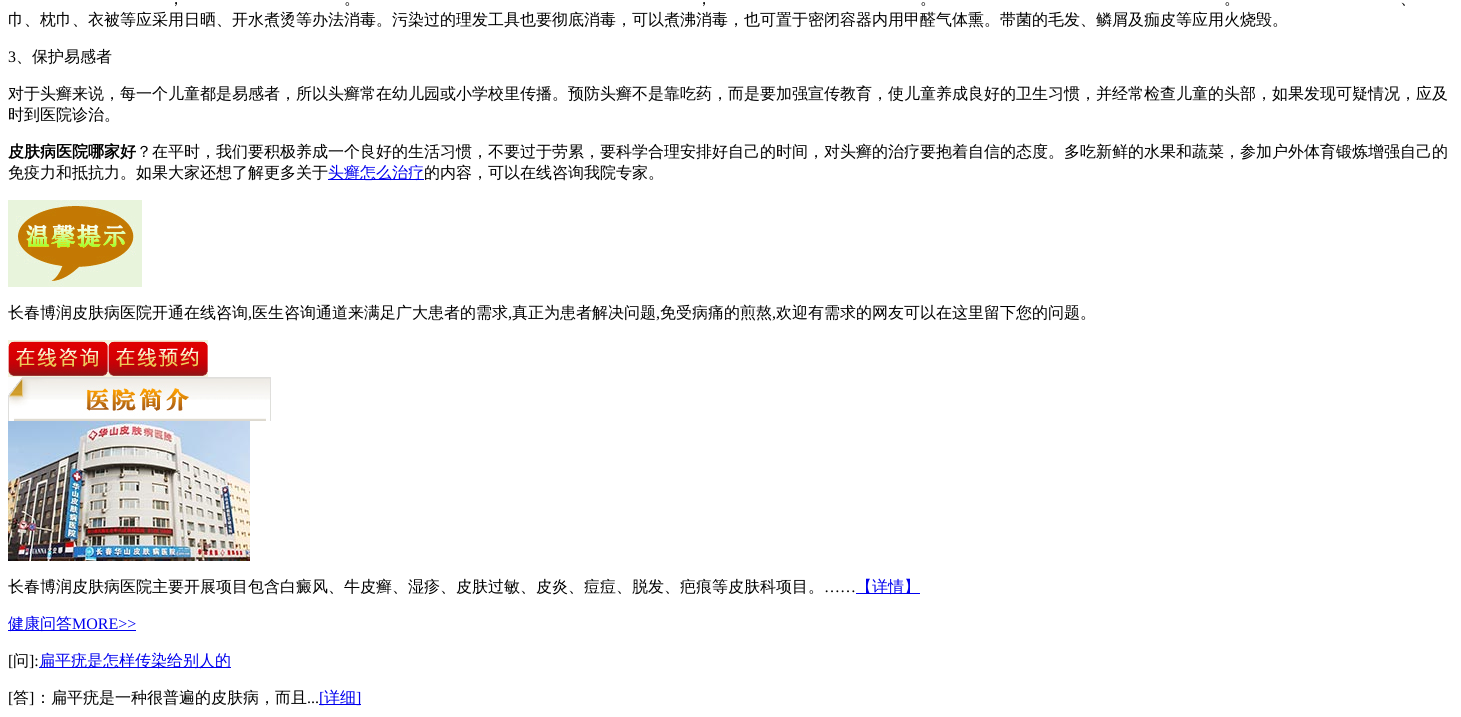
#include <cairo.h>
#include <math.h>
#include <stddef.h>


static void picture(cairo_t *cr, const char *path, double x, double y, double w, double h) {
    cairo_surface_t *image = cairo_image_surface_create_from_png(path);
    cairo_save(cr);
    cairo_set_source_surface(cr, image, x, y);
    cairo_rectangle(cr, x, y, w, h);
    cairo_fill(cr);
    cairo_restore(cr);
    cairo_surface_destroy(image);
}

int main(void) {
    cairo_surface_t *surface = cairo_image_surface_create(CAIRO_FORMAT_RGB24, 1461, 717);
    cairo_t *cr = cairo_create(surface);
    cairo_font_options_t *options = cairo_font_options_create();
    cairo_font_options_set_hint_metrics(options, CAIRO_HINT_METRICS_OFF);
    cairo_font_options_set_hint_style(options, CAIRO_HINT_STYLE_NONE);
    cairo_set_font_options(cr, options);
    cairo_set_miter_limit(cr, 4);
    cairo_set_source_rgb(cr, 1, 1, 1);
    cairo_paint(cr);
    cairo_select_font_face(cr, "WenQuanYi Zen Hei Medium", CAIRO_FONT_SLANT_NORMAL, CAIRO_FONT_WEIGHT_NORMAL);
    cairo_set_font_size(cr, 16);
    cairo_set_source_rgb(cr, 0, 0, 0);
    cairo_move_to(cr, 168, 4);
    cairo_show_text(cr, "，");
    cairo_move_to(cr, 344, 4);
    cairo_show_text(cr, "。");
    cairo_move_to(cr, 696, 4);
    cairo_show_text(cr, "，");
    cairo_move_to(cr, 920, 4);
    cairo_show_text(cr, "。");
    cairo_move_to(cr, 1224, 4);
    cairo_show_text(cr, "。");
    cairo_move_to(cr, 1400, 4);
    cairo_show_text(cr, "、");
    cairo_move_to(cr, 8, 25);
    cairo_show_text(cr, "巾、枕巾、衣被等应采用日晒、开水煮烫等办法消毒。污染过的理发工具也要彻底消毒，可以煮沸消毒，也可置于密闭容器内用甲醛气体熏。带菌的毛发、鳞屑及痂皮等应用火烧毁。");
    cairo_select_font_face(cr, "Liberation Serif", CAIRO_FONT_SLANT_NORMAL, CAIRO_FONT_WEIGHT_NORMAL);
    cairo_move_to(cr, 8, 62);
    cairo_show_text(cr, "3");
    cairo_select_font_face(cr, "WenQuanYi Zen Hei Medium", CAIRO_FONT_SLANT_NORMAL, CAIRO_FONT_WEIGHT_NORMAL);
    cairo_move_to(cr, 16, 62);
    cairo_show_text(cr, "、保护易感者");
    cairo_move_to(cr, 8, 99);
    cairo_show_text(cr, "对于头癣来说，每一个儿童都是易感者，所以头癣常在幼儿园或小学校里传播。预防头癣不是靠吃药，而是要加强宣传教育，使儿童养成良好的卫生习惯，并经常检查儿童的头部，如果发现可疑情况，应及");
    cairo_move_to(cr, 8, 120);
    cairo_show_text(cr, "时到医院诊治。");
    cairo_select_font_face(cr, "WenQuanYi Zen Hei", CAIRO_FONT_SLANT_NORMAL, CAIRO_FONT_WEIGHT_BOLD);
    cairo_move_to(cr, 8, 157);
    cairo_show_text(cr, "皮肤病医院哪家好");
    cairo_select_font_face(cr, "WenQuanYi Zen Hei Medium", CAIRO_FONT_SLANT_NORMAL, CAIRO_FONT_WEIGHT_NORMAL);
    cairo_move_to(cr, 136, 157);
    cairo_show_text(cr, "？在平时，我们要积极养成一个良好的生活习惯，不要过于劳累，要科学合理安排好自己的时间，对头癣的治疗要抱着自信的态度。多吃新鲜的水果和蔬菜，参加户外体育锻炼增强自己的");
    cairo_move_to(cr, 8, 178);
    cairo_show_text(cr, "免疫力和抵抗力。如果大家还想了解更多关于");
    cairo_set_source_rgb(cr, 0, 0, 0.933);
    cairo_rectangle(cr, 328, 179, 96, 1);
    cairo_fill(cr);
    cairo_move_to(cr, 328, 178);
    cairo_show_text(cr, "头癣怎么治疗");
    cairo_set_source_rgb(cr, 0, 0, 0);
    cairo_move_to(cr, 424, 178);
    cairo_show_text(cr, "的内容，可以在线咨询我院专家。");
    picture(cr, "img1.png", 8, 200, 134, 87);
    cairo_move_to(cr, 8, 318);
    cairo_show_text(cr, "长春博润皮肤病医院开通在线咨询");
    cairo_select_font_face(cr, "Liberation Serif", CAIRO_FONT_SLANT_NORMAL, CAIRO_FONT_WEIGHT_NORMAL);
    cairo_move_to(cr, 248, 318);
    cairo_show_text(cr, ",");
    cairo_select_font_face(cr, "WenQuanYi Zen Hei Medium", CAIRO_FONT_SLANT_NORMAL, CAIRO_FONT_WEIGHT_NORMAL);
    cairo_move_to(cr, 252, 318);
    cairo_show_text(cr, "医生咨询通道来满足广大患者的需求");
    cairo_select_font_face(cr, "Liberation Serif", CAIRO_FONT_SLANT_NORMAL, CAIRO_FONT_WEIGHT_NORMAL);
    cairo_move_to(cr, 508, 318);
    cairo_show_text(cr, ",");
    cairo_select_font_face(cr, "WenQuanYi Zen Hei Medium", CAIRO_FONT_SLANT_NORMAL, CAIRO_FONT_WEIGHT_NORMAL);
    cairo_move_to(cr, 512, 318);
    cairo_show_text(cr, "真正为患者解决问题");
    cairo_select_font_face(cr, "Liberation Serif", CAIRO_FONT_SLANT_NORMAL, CAIRO_FONT_WEIGHT_NORMAL);
    cairo_move_to(cr, 656, 318);
    cairo_show_text(cr, ",");
    cairo_select_font_face(cr, "WenQuanYi Zen Hei Medium", CAIRO_FONT_SLANT_NORMAL, CAIRO_FONT_WEIGHT_NORMAL);
    cairo_move_to(cr, 660, 318);
    cairo_show_text(cr, "免受病痛的煎熬");
    cairo_select_font_face(cr, "Liberation Serif", CAIRO_FONT_SLANT_NORMAL, CAIRO_FONT_WEIGHT_NORMAL);
    cairo_move_to(cr, 772, 318);
    cairo_show_text(cr, ",");
    cairo_select_font_face(cr, "WenQuanYi Zen Hei Medium", CAIRO_FONT_SLANT_NORMAL, CAIRO_FONT_WEIGHT_NORMAL);
    cairo_move_to(cr, 776, 318);
    cairo_show_text(cr, "欢迎有需求的网友可以在这里留下您的问题。");
    picture(cr, "img2.png", 8, 340, 100, 37);
    picture(cr, "img3.png", 108, 340, 100, 37);
    picture(cr, "img4.png", 8, 377, 263, 44);
    picture(cr, "img5.png", 8, 421, 242, 140);
    cairo_move_to(cr, 8, 592);
    cairo_show_text(cr, "长春博润皮肤病医院主要开展项目包含白癜风、牛皮癣、湿疹、皮肤过敏、皮炎、痘痘、脱发、疤痕等皮肤科项目。");
    cairo_select_font_face(cr, "Liberation Serif", CAIRO_FONT_SLANT_NORMAL, CAIRO_FONT_WEIGHT_NORMAL);
    cairo_move_to(cr, 824, 592);
    cairo_show_text(cr, "……");
    cairo_set_source_rgb(cr, 0, 0, 0.933);
    cairo_rectangle(cr, 856, 593, 64, 1);
    cairo_fill(cr);
    cairo_select_font_face(cr, "WenQuanYi Zen Hei Medium", CAIRO_FONT_SLANT_NORMAL, CAIRO_FONT_WEIGHT_NORMAL);
    cairo_move_to(cr, 856, 592);
    cairo_show_text(cr, "【详情】");
    cairo_rectangle(cr, 8, 630, 128, 1);
    cairo_fill(cr);
    cairo_move_to(cr, 8, 629);
    cairo_show_text(cr, "健康问答");
    cairo_select_font_face(cr, "Liberation Serif", CAIRO_FONT_SLANT_NORMAL, CAIRO_FONT_WEIGHT_NORMAL);
    cairo_move_to(cr, 72, 629);
    cairo_show_text(cr, "MORE>>");
    cairo_set_source_rgb(cr, 0, 0, 0);
    cairo_move_to(cr, 8, 666);
    cairo_show_text(cr, "[");
    cairo_select_font_face(cr, "WenQuanYi Zen Hei Medium", CAIRO_FONT_SLANT_NORMAL, CAIRO_FONT_WEIGHT_NORMAL);
    cairo_move_to(cr, 13, 666);
    cairo_show_text(cr, "问");
    cairo_select_font_face(cr, "Liberation Serif", CAIRO_FONT_SLANT_NORMAL, CAIRO_FONT_WEIGHT_NORMAL);
    cairo_move_to(cr, 29, 666);
    cairo_show_text(cr, "]:");
    cairo_set_source_rgb(cr, 0, 0, 0.933);
    cairo_rectangle(cr, 39, 667, 192, 1);
    cairo_fill(cr);
    cairo_select_font_face(cr, "WenQuanYi Zen Hei Medium", CAIRO_FONT_SLANT_NORMAL, CAIRO_FONT_WEIGHT_NORMAL);
    cairo_move_to(cr, 39, 666);
    cairo_show_text(cr, "扁平疣是怎样传染给别人的");
    cairo_select_font_face(cr, "Liberation Serif", CAIRO_FONT_SLANT_NORMAL, CAIRO_FONT_WEIGHT_NORMAL);
    cairo_set_source_rgb(cr, 0, 0, 0);
    cairo_move_to(cr, 8, 703);
    cairo_show_text(cr, "[");
    cairo_select_font_face(cr, "WenQuanYi Zen Hei Medium", CAIRO_FONT_SLANT_NORMAL, CAIRO_FONT_WEIGHT_NORMAL);
    cairo_move_to(cr, 13, 703);
    cairo_show_text(cr, "答");
    cairo_select_font_face(cr, "Liberation Serif", CAIRO_FONT_SLANT_NORMAL, CAIRO_FONT_WEIGHT_NORMAL);
    cairo_move_to(cr, 29, 703);
    cairo_show_text(cr, "]");
    cairo_select_font_face(cr, "WenQuanYi Zen Hei Medium", CAIRO_FONT_SLANT_NORMAL, CAIRO_FONT_WEIGHT_NORMAL);
    cairo_move_to(cr, 35, 703);
    cairo_show_text(cr, "：扁平疣是一种很普遍的皮肤病，而且");
    cairo_select_font_face(cr, "Liberation Serif", CAIRO_FONT_SLANT_NORMAL, CAIRO_FONT_WEIGHT_NORMAL);
    cairo_move_to(cr, 307, 703);
    cairo_show_text(cr, "...");
    cairo_set_source_rgb(cr, 0, 0, 0.933);
    cairo_rectangle(cr, 319, 704, 42, 1);
    cairo_fill(cr);
    cairo_move_to(cr, 319, 703);
    cairo_show_text(cr, "[");
    cairo_select_font_face(cr, "WenQuanYi Zen Hei Medium", CAIRO_FONT_SLANT_NORMAL, CAIRO_FONT_WEIGHT_NORMAL);
    cairo_move_to(cr, 324, 703);
    cairo_show_text(cr, "详细");
    cairo_select_font_face(cr, "Liberation Serif", CAIRO_FONT_SLANT_NORMAL, CAIRO_FONT_WEIGHT_NORMAL);
    cairo_move_to(cr, 356, 703);
    cairo_show_text(cr, "]");
    cairo_surface_write_to_png(surface, "page.png");
    cairo_font_options_destroy(options);
    cairo_destroy(cr);
    cairo_surface_destroy(surface);
    return 0;
}
